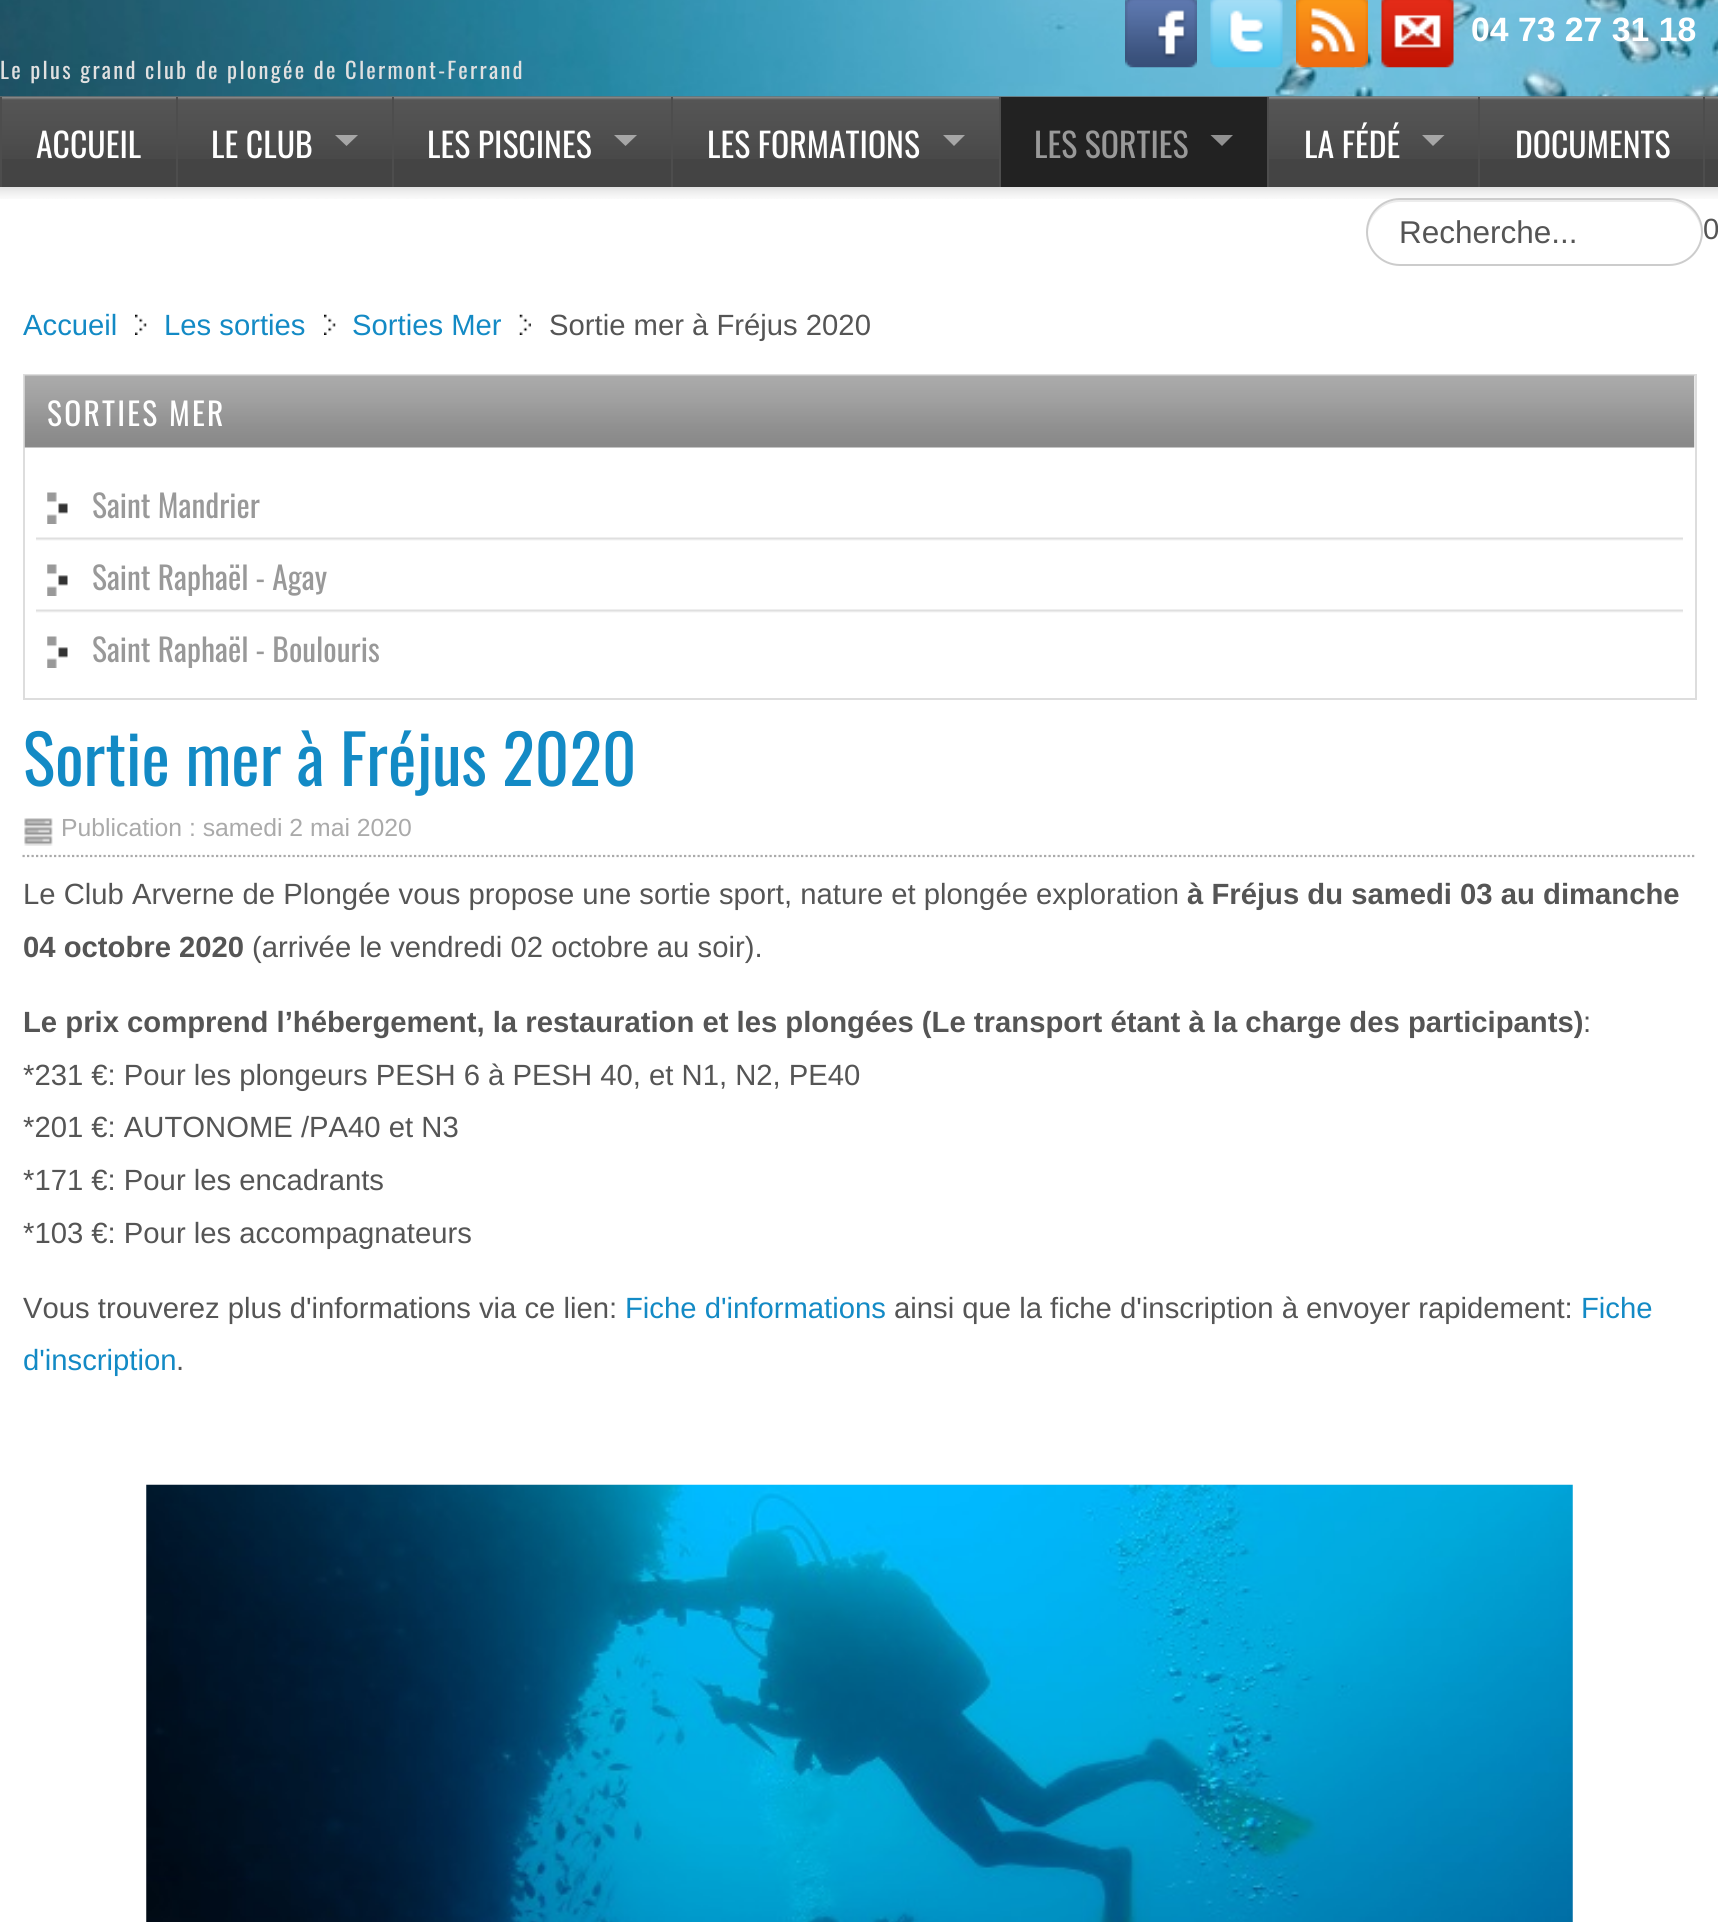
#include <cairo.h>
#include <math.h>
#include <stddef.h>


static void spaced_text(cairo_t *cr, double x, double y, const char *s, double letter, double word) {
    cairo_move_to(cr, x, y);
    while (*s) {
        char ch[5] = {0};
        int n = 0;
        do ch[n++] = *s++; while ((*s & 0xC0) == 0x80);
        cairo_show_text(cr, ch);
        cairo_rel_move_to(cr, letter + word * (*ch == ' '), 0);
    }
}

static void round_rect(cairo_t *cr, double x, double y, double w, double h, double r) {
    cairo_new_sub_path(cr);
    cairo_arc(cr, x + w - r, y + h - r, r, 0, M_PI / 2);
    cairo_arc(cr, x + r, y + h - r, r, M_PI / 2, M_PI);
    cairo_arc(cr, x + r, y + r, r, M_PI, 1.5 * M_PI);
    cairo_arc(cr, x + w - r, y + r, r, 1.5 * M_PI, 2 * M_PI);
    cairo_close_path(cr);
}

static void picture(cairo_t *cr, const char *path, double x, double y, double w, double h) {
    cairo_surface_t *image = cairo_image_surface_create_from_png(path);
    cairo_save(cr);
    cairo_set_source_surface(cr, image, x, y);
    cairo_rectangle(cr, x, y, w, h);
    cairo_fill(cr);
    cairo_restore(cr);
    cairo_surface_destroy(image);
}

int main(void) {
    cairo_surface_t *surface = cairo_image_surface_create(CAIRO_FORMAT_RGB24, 1718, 1922);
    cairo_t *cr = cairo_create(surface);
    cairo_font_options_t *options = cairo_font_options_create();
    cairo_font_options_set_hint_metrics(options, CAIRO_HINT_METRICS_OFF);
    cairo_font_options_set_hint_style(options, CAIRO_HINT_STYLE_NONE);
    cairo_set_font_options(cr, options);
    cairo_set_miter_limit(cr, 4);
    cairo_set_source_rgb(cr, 0.267, 0.267, 0.267);
    cairo_paint(cr);
    picture(cr, "img1.png", 0, 0, 1718, 97);
    picture(cr, "img2.png", 1125, 0, 72, 68);
    picture(cr, "img3.png", 1210, 0, 73, 68);
    picture(cr, "img4.png", 1296, 0, 72, 68);
    picture(cr, "img5.png", 1381, 0, 73, 68);
    cairo_select_font_face(cr, "Liberation Sans", CAIRO_FONT_SLANT_NORMAL, CAIRO_FONT_WEIGHT_BOLD);
    cairo_set_font_size(cr, 33.75);
    cairo_set_source_rgb(cr, 1, 1, 1);
    cairo_move_to(cr, 1471, 41);
    cairo_show_text(cr, "04 73 27 31 18");
    cairo_select_font_face(cr, "Oswald", CAIRO_FONT_SLANT_NORMAL, CAIRO_FONT_WEIGHT_NORMAL);
    cairo_set_font_size(cr, 22.5);
    cairo_set_source_rgb(cr, 0.878, 0.878, 0.878);
    spaced_text(cr, 0, 79, "Le plus grand club de plongée de Clermont-Ferrand", 2.25, 0);
    picture(cr, "img6.png", 0, 96, 1718, 63);
    cairo_set_source_rgb(cr, 0.302, 0.302, 0.302);
    cairo_rectangle(cr, 0, 97, 2, 90);
    cairo_fill(cr);
    cairo_rectangle(cr, 176, 97, 2, 90);
    cairo_fill(cr);
    cairo_set_font_size(cr, 33.75);
    cairo_set_source_rgb(cr, 1, 1, 1);
    cairo_move_to(cr, 36, 158);
    cairo_show_text(cr, "ACCUEIL");
    cairo_set_source_rgb(cr, 0.302, 0.302, 0.302);
    cairo_rectangle(cr, 392, 97, 2, 90);
    cairo_fill(cr);
    cairo_set_source_rgb(cr, 1, 1, 1);
    cairo_move_to(cr, 211, 158);
    cairo_show_text(cr, "LE CLUB");
    cairo_set_source_rgb(cr, 0.651, 0.651, 0.651);
    cairo_new_path(cr);
    cairo_move_to(cr, 335, 135);
    cairo_line_to(cr, 358, 135);
    cairo_line_to(cr, 346.5, 146);
    cairo_close_path(cr);
    cairo_fill(cr);
    cairo_set_source_rgb(cr, 0.302, 0.302, 0.302);
    cairo_rectangle(cr, 671, 97, 2, 90);
    cairo_fill(cr);
    cairo_set_source_rgb(cr, 1, 1, 1);
    cairo_move_to(cr, 427, 158);
    cairo_show_text(cr, "LES PISCINES");
    cairo_set_source_rgb(cr, 0.651, 0.651, 0.651);
    cairo_new_path(cr);
    cairo_move_to(cr, 614, 135);
    cairo_line_to(cr, 637, 135);
    cairo_line_to(cr, 625.5, 146);
    cairo_close_path(cr);
    cairo_fill(cr);
    cairo_set_source_rgb(cr, 0.302, 0.302, 0.302);
    cairo_rectangle(cr, 999, 97, 2, 90);
    cairo_fill(cr);
    cairo_set_source_rgb(cr, 1, 1, 1);
    cairo_move_to(cr, 707, 158);
    cairo_show_text(cr, "LES FORMATIONS");
    cairo_set_source_rgb(cr, 0.651, 0.651, 0.651);
    cairo_new_path(cr);
    cairo_move_to(cr, 943, 135);
    cairo_line_to(cr, 965, 135);
    cairo_line_to(cr, 954, 146);
    cairo_close_path(cr);
    cairo_fill(cr);
    cairo_set_source_rgb(cr, 0.302, 0.302, 0.302);
    cairo_rectangle(cr, 1267, 97, 2, 90);
    cairo_fill(cr);
    cairo_set_source_rgb(cr, 0.133, 0.133, 0.133);
    cairo_rectangle(cr, 1001, 97, 266, 90);
    cairo_fill(cr);
    cairo_set_source_rgb(cr, 0.6, 0.6, 0.6);
    cairo_move_to(cr, 1034, 158);
    cairo_show_text(cr, "LES SORTIES");
    cairo_set_source_rgb(cr, 0.569, 0.569, 0.569);
    cairo_new_path(cr);
    cairo_move_to(cr, 1210.5, 135);
    cairo_line_to(cr, 1233, 135);
    cairo_line_to(cr, 1222, 146);
    cairo_close_path(cr);
    cairo_fill(cr);
    cairo_set_source_rgb(cr, 0.302, 0.302, 0.302);
    cairo_rectangle(cr, 1478, 97, 2, 90);
    cairo_fill(cr);
    cairo_set_source_rgb(cr, 1, 1, 1);
    cairo_move_to(cr, 1304, 158);
    cairo_show_text(cr, "LA FÉDÉ");
    cairo_set_source_rgb(cr, 0.651, 0.651, 0.651);
    cairo_new_path(cr);
    cairo_move_to(cr, 1422, 135);
    cairo_line_to(cr, 1444.5, 135);
    cairo_line_to(cr, 1433, 146);
    cairo_close_path(cr);
    cairo_fill(cr);
    cairo_set_source_rgb(cr, 0.302, 0.302, 0.302);
    cairo_rectangle(cr, 1703, 97, 2, 90);
    cairo_fill(cr);
    cairo_set_source_rgb(cr, 1, 1, 1);
    cairo_move_to(cr, 1515, 158);
    cairo_show_text(cr, "DOCUMENTS");
    cairo_rectangle(cr, 0, 187, 1718, 1735);
    cairo_fill(cr);
    picture(cr, "img7.png", 0, 187, 1718, 12);
    round_rect(cr, 1366, 198, 337, 68, 34);
    cairo_fill(cr);
    cairo_set_source_rgb(cr, 0.925, 0.925, 0.925);
    cairo_new_path(cr);
    cairo_move_to(cr, 1400, 202);
    cairo_line_to(cr, 1670, 202);
    cairo_curve_to(cr, 1687, 202, 1700, 216, 1701, 233);
    cairo_line_to(cr, 1701, 232);
    cairo_curve_to(cr, 1701, 214, 1687, 200, 1670, 200);
    cairo_line_to(cr, 1400, 200);
    cairo_curve_to(cr, 1382, 200, 1368, 214, 1368, 232);
    cairo_line_to(cr, 1368, 233);
    cairo_curve_to(cr, 1369, 216, 1382, 202, 1400, 202);
    cairo_close_path(cr);
    cairo_fill(cr);
    round_rect(cr, 1367, 199, 335, 66, 33);
    cairo_set_source_rgb(cr, 0.8, 0.8, 0.8);
    cairo_stroke(cr);
    cairo_select_font_face(cr, "Liberation Sans", CAIRO_FONT_SLANT_NORMAL, CAIRO_FONT_WEIGHT_NORMAL);
    cairo_set_font_size(cr, 31.5);
    cairo_set_source_rgb(cr, 0.333, 0.333, 0.333);
    cairo_move_to(cr, 1399, 243);
    cairo_show_text(cr, "Recherche...");
    cairo_set_font_size(cr, 29.25);
    cairo_move_to(cr, 1703, 239);
    cairo_show_text(cr, "0");
    cairo_set_source_rgb(cr, 0.078, 0.541, 0.773);
    cairo_move_to(cr, 23, 335);
    cairo_show_text(cr, "Accueil");
    picture(cr, "img8.png", 135, 314, 12, 21);
    cairo_move_to(cr, 164, 335);
    cairo_show_text(cr, "Les sorties");
    picture(cr, "img9.png", 324, 314, 12, 21);
    cairo_move_to(cr, 352, 335);
    cairo_show_text(cr, "Sorties Mer");
    picture(cr, "img10.png", 519, 314, 12, 21);
    cairo_set_source_rgb(cr, 0.333, 0.333, 0.333);
    cairo_move_to(cr, 549, 335);
    cairo_show_text(cr, "Sortie mer à Fréjus 2020");
    cairo_rectangle(cr, 24, 375, 1672, 324);
    cairo_set_source_rgb(cr, 0.867, 0.867, 0.867);
    cairo_stroke(cr);
    picture(cr, "img11.png", 24, 375, 1671, 73);
    cairo_select_font_face(cr, "Oswald", CAIRO_FONT_SLANT_NORMAL, CAIRO_FONT_WEIGHT_NORMAL);
    cairo_set_font_size(cr, 31.5);
    cairo_set_source_rgb(cr, 1, 1, 1);
    spaced_text(cr, 47, 426, "SORTIES MER", 2.25, 0);
    picture(cr, "img12.png", 36, 537, 1647, 4);
    picture(cr, "img13.png", 47, 492, 21, 32);
    cairo_set_source_rgb(cr, 0.6, 0.6, 0.6);
    cairo_move_to(cr, 92, 518);
    cairo_show_text(cr, "Saint Mandrier");
    picture(cr, "img12.png", 36, 609, 1647, 4);
    picture(cr, "img13.png", 47, 564, 21, 32);
    cairo_move_to(cr, 92, 590);
    cairo_show_text(cr, "Saint Raphaël - Agay");
    picture(cr, "img13.png", 47, 636, 21, 32);
    cairo_move_to(cr, 92, 662);
    cairo_show_text(cr, "Saint Raphaël - Boulouris");
    cairo_set_font_size(cr, 67.5);
    cairo_set_source_rgb(cr, 0.078, 0.541, 0.773);
    cairo_move_to(cr, 23, 786);
    cairo_show_text(cr, "Sortie mer à Fréjus 2020");
    cairo_new_path(cr);
    cairo_move_to(cr, 22.5, 856);
    cairo_line_to(cr, 1696.5, 856);
    cairo_set_source_rgb(cr, 0.667, 0.667, 0.667);
    cairo_set_line_width(cr, 2.2);
    cairo_set_dash(cr, (double[]){2.25, 2.25}, 2, 0);
    cairo_stroke(cr);
    picture(cr, "img14.png", 24, 818, 29, 28);
    cairo_select_font_face(cr, "Liberation Sans", CAIRO_FONT_SLANT_NORMAL, CAIRO_FONT_WEIGHT_NORMAL);
    cairo_set_font_size(cr, 24.75);
    cairo_move_to(cr, 61, 836);
    cairo_show_text(cr, "Publication : samedi 2 mai 2020");
    cairo_set_font_size(cr, 29.25);
    cairo_set_source_rgb(cr, 0.333, 0.333, 0.333);
    cairo_move_to(cr, 23, 904);
    cairo_show_text(cr, "Le Club Arverne de Plongée vous propose une sortie sport, nature et plongée exploration");
    cairo_select_font_face(cr, "Liberation Sans", CAIRO_FONT_SLANT_NORMAL, CAIRO_FONT_WEIGHT_BOLD);
    cairo_move_to(cr, 1187, 904);
    cairo_show_text(cr, "à Fréjus du samedi 03 au dimanche");
    cairo_move_to(cr, 23, 957);
    cairo_show_text(cr, "04 octobre 2020");
    cairo_select_font_face(cr, "Liberation Sans", CAIRO_FONT_SLANT_NORMAL, CAIRO_FONT_WEIGHT_NORMAL);
    cairo_move_to(cr, 252, 957);
    cairo_show_text(cr, "(arrivée le vendredi 02 octobre au soir).");
    cairo_select_font_face(cr, "Liberation Sans", CAIRO_FONT_SLANT_NORMAL, CAIRO_FONT_WEIGHT_BOLD);
    cairo_move_to(cr, 23, 1032);
    cairo_show_text(cr, "Le prix comprend l’hébergement, la restauration et les plongées (Le transport étant à la charge des participants)");
    cairo_select_font_face(cr, "Liberation Sans", CAIRO_FONT_SLANT_NORMAL, CAIRO_FONT_WEIGHT_NORMAL);
    cairo_move_to(cr, 1583, 1032);
    cairo_show_text(cr, ":");
    cairo_move_to(cr, 23, 1085);
    cairo_show_text(cr, "*231 €: Pour les plongeurs PESH 6 à PESH 40, et N1, N2, PE40");
    cairo_move_to(cr, 23, 1137);
    cairo_show_text(cr, "*201 €: AUTONOME /PA40 et N3");
    cairo_move_to(cr, 23, 1190);
    cairo_show_text(cr, "*171 €: Pour les encadrants");
    cairo_move_to(cr, 23, 1243);
    cairo_show_text(cr, "*103 €: Pour les accompagnateurs");
    cairo_move_to(cr, 23, 1318);
    cairo_show_text(cr, "Vous trouverez plus d'informations via ce lien:");
    cairo_set_source_rgb(cr, 0.078, 0.541, 0.773);
    cairo_move_to(cr, 625, 1318);
    cairo_show_text(cr, "Fiche d'informations");
    cairo_set_source_rgb(cr, 0.333, 0.333, 0.333);
    cairo_move_to(cr, 894, 1318);
    cairo_show_text(cr, "ainsi que la fiche d'inscription à envoyer rapidement:");
    cairo_set_source_rgb(cr, 0.078, 0.541, 0.773);
    cairo_move_to(cr, 1581, 1318);
    cairo_show_text(cr, "Fiche");
    cairo_move_to(cr, 23, 1370);
    cairo_show_text(cr, "d'inscription");
    cairo_set_source_rgb(cr, 0.333, 0.333, 0.333);
    cairo_move_to(cr, 176, 1370);
    cairo_show_text(cr, ".");
    picture(cr, "img15.png", 146, 1484, 1427, 438);
    cairo_surface_write_to_png(surface, "page.png");
    cairo_font_options_destroy(options);
    cairo_destroy(cr);
    cairo_surface_destroy(surface);
    return 0;
}
